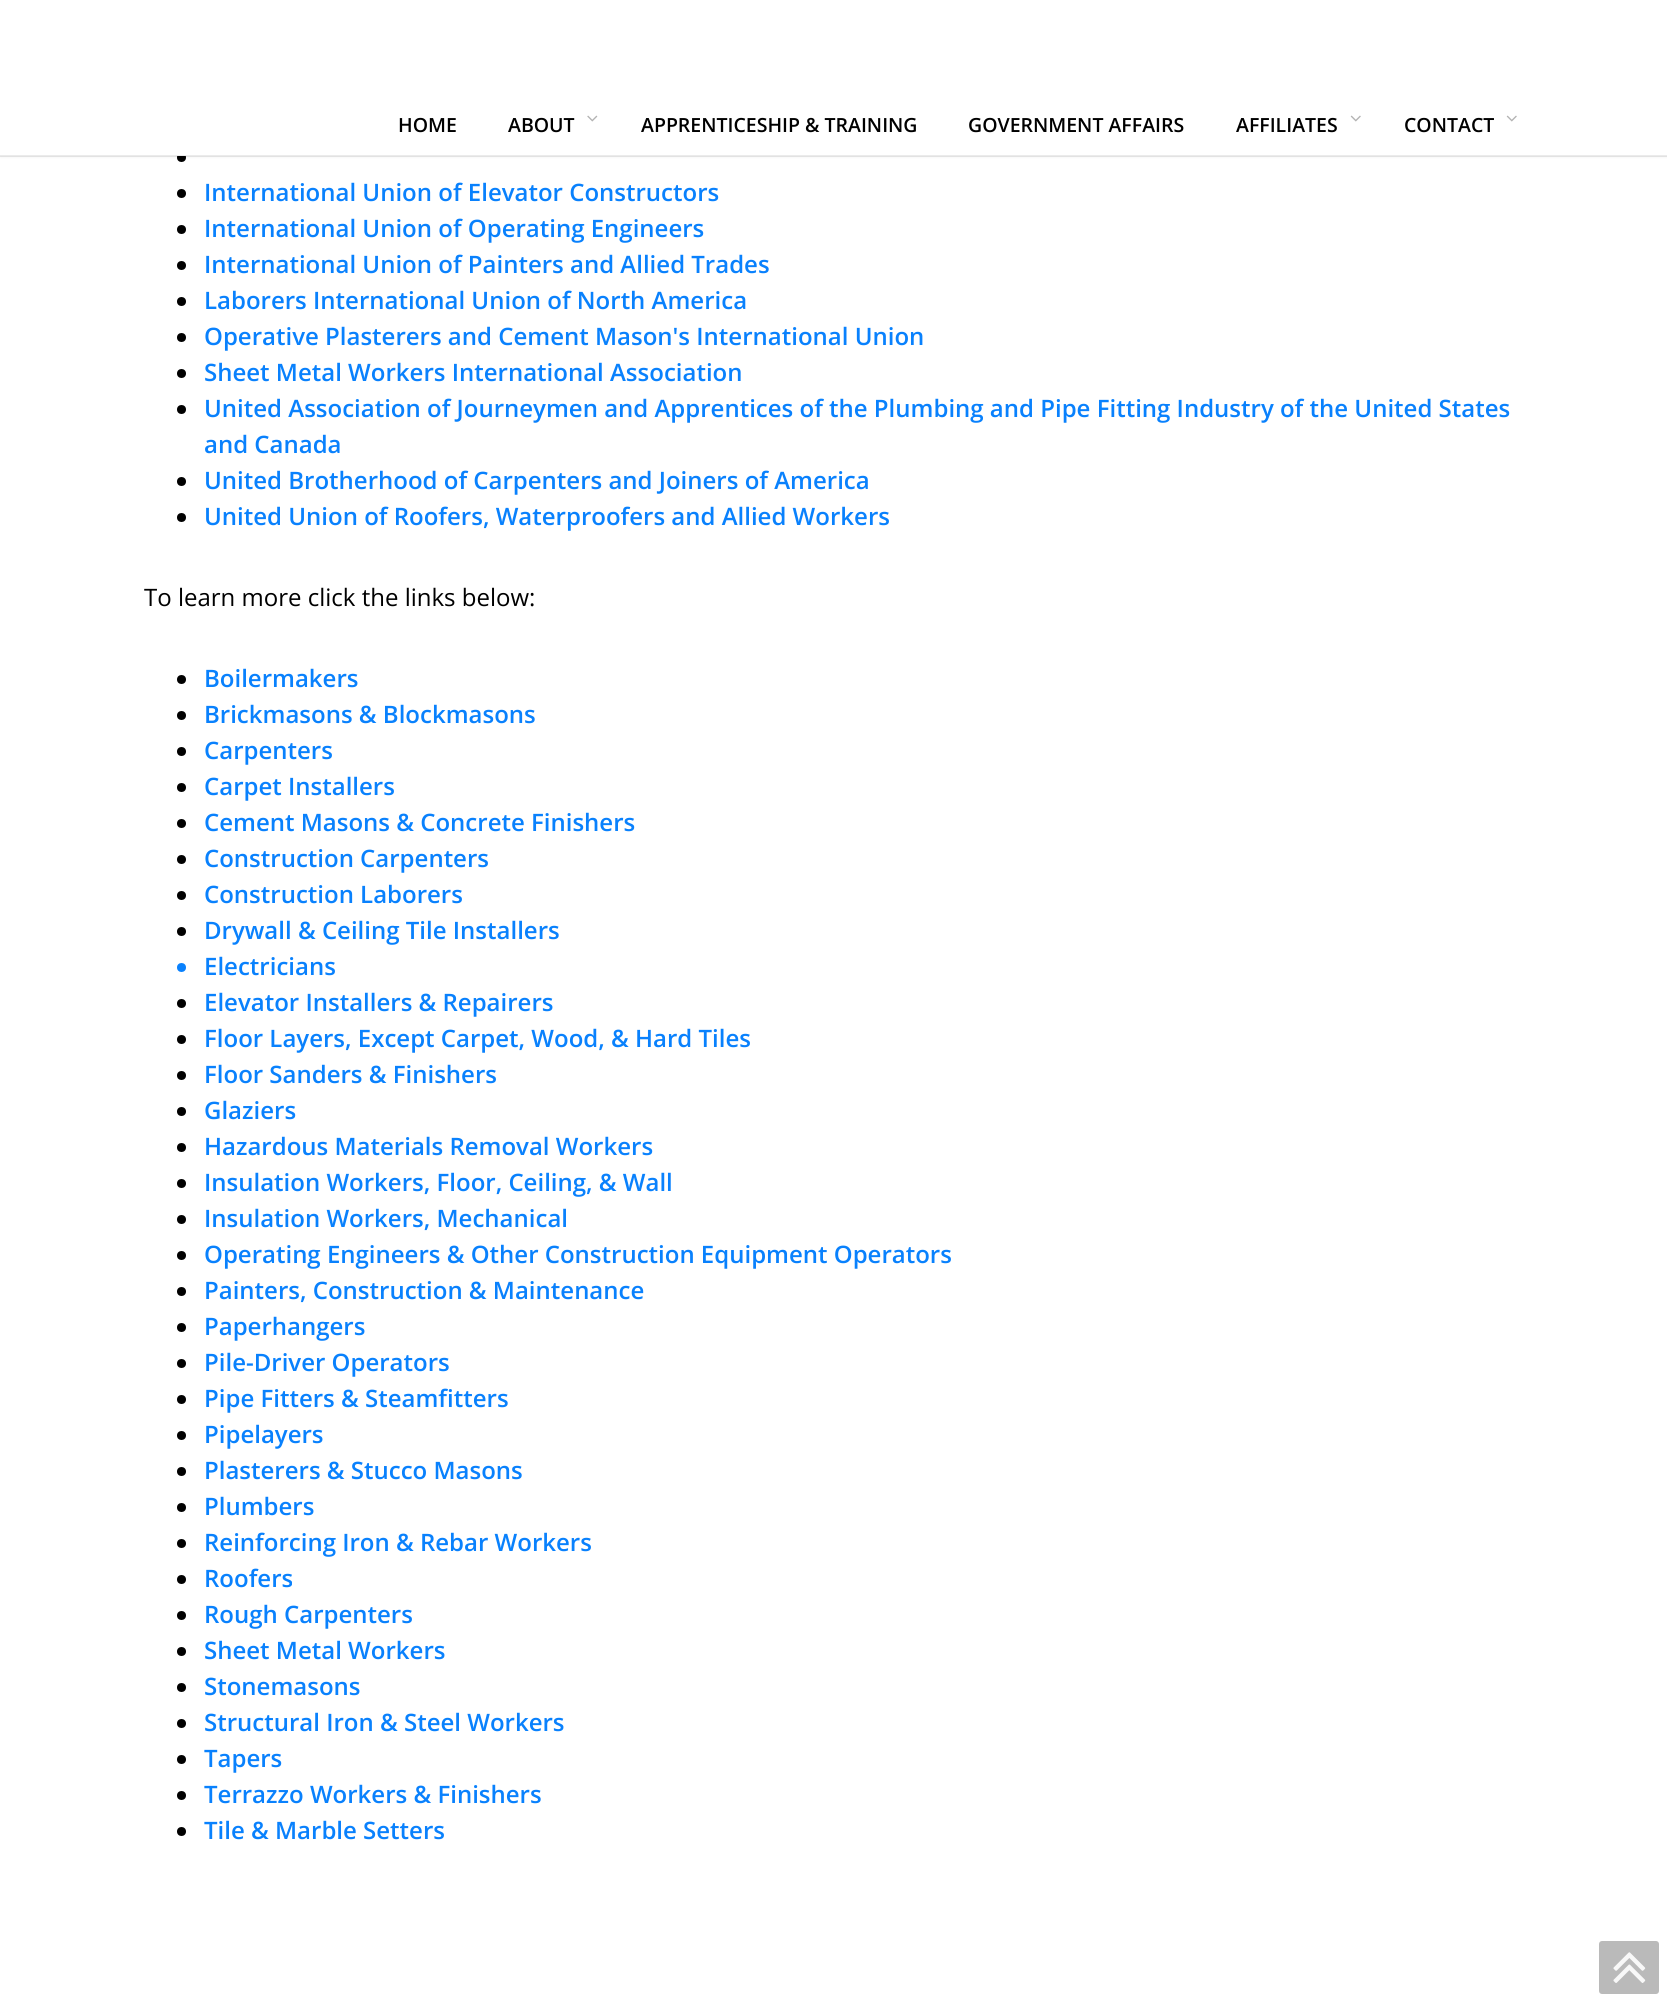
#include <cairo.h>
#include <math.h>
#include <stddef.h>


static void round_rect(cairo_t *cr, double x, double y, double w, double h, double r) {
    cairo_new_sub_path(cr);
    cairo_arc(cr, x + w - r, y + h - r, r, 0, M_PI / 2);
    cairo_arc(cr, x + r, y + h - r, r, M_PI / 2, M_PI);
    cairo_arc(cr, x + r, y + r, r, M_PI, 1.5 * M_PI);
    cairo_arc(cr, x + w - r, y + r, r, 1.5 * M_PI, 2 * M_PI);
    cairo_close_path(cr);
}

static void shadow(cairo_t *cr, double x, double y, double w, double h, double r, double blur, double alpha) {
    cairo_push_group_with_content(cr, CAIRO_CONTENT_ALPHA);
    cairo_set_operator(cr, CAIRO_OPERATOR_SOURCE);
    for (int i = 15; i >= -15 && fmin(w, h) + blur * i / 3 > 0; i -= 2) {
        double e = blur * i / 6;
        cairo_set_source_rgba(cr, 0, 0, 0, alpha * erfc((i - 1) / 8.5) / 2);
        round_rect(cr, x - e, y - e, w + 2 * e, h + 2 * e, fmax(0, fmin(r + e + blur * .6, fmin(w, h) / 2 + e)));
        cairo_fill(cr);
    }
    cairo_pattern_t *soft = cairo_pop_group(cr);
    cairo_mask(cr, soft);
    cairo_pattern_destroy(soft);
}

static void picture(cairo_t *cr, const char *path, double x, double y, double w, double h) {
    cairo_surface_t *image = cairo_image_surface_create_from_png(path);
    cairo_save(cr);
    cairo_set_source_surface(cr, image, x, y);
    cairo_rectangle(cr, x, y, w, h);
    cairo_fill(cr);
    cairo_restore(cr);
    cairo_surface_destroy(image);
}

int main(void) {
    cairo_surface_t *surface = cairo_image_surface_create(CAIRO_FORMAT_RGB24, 1667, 2002);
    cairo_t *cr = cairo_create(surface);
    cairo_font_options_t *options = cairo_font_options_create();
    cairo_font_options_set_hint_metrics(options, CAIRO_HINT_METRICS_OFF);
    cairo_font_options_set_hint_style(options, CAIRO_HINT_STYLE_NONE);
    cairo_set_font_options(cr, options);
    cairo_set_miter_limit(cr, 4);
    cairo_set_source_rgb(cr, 1, 1, 1);
    cairo_paint(cr);
    cairo_set_source_rgb(cr, 0, 0, 0);
    cairo_arc(cr, 181.5, 157.5, 4.5, 0, 2 * M_PI);
    cairo_fill(cr);
    cairo_set_source_rgb(cr, 0, 0, 0);
    shadow(cr, 0, 0, 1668, 156, 0, 1.5, 0.1);
    cairo_set_source_rgb(cr, 1, 1, 1);
    cairo_rectangle(cr, 0, 0, 1667, 156);
    cairo_fill(cr);
    cairo_set_source_rgba(cr, 0, 0, 0, 0.08);
    cairo_rectangle(cr, 0, 155, 1667, 2);
    cairo_fill(cr);
    cairo_select_font_face(cr, "Open Sans SemiBold", CAIRO_FONT_SLANT_NORMAL, CAIRO_FONT_WEIGHT_NORMAL);
    cairo_set_font_size(cr, 19.5);
    cairo_set_source_rgb(cr, 0, 0, 0);
    cairo_move_to(cr, 398, 132);
    cairo_show_text(cr, "HOME");
    cairo_move_to(cr, 508, 132);
    cairo_show_text(cr, "ABOUT");
    picture(cr, "img1.png", 587, 115, 11, 7);
    cairo_move_to(cr, 641, 132);
    cairo_show_text(cr, "APPRENTICESHIP & TRAINING");
    cairo_move_to(cr, 968, 132);
    cairo_show_text(cr, "GOVERNMENT AFFAIRS");
    cairo_move_to(cr, 1236, 132);
    cairo_show_text(cr, "AFFILIATES");
    picture(cr, "img2.png", 1350, 115, 11, 7);
    cairo_move_to(cr, 1404, 132);
    cairo_show_text(cr, "CONTACT");
    picture(cr, "img2.png", 1506, 115, 11, 7);
    cairo_arc(cr, 181.5, 193.5, 4.5, 0, 2 * M_PI);
    cairo_fill(cr);
    cairo_set_font_size(cr, 24);
    cairo_set_source_rgb(cr, 0.039, 0.506, 0.992);
    cairo_move_to(cr, 204, 201);
    cairo_show_text(cr, "International Union of Elevator Constructors");
    cairo_set_source_rgb(cr, 0, 0, 0);
    cairo_new_path(cr);
    cairo_arc(cr, 181.5, 229.5, 4.5, 0, 2 * M_PI);
    cairo_fill(cr);
    cairo_set_source_rgb(cr, 0.039, 0.506, 0.992);
    cairo_move_to(cr, 204, 237);
    cairo_show_text(cr, "International Union of Operating Engineers");
    cairo_set_source_rgb(cr, 0, 0, 0);
    cairo_new_path(cr);
    cairo_arc(cr, 181.5, 265.5, 4.5, 0, 2 * M_PI);
    cairo_fill(cr);
    cairo_set_source_rgb(cr, 0.039, 0.506, 0.992);
    cairo_move_to(cr, 204, 273);
    cairo_show_text(cr, "International Union of Painters and Allied Trades");
    cairo_set_source_rgb(cr, 0, 0, 0);
    cairo_new_path(cr);
    cairo_arc(cr, 181.5, 301.5, 4.5, 0, 2 * M_PI);
    cairo_fill(cr);
    cairo_set_source_rgb(cr, 0.039, 0.506, 0.992);
    cairo_move_to(cr, 204, 309);
    cairo_show_text(cr, "Laborers International Union of North America");
    cairo_set_source_rgb(cr, 0, 0, 0);
    cairo_new_path(cr);
    cairo_arc(cr, 181.5, 337.5, 4.5, 0, 2 * M_PI);
    cairo_fill(cr);
    cairo_set_source_rgb(cr, 0.039, 0.506, 0.992);
    cairo_move_to(cr, 204, 345);
    cairo_show_text(cr, "Operative Plasterers and Cement Mason's International Union");
    cairo_set_source_rgb(cr, 0, 0, 0);
    cairo_new_path(cr);
    cairo_arc(cr, 181.5, 373.5, 4.5, 0, 2 * M_PI);
    cairo_fill(cr);
    cairo_set_source_rgb(cr, 0.039, 0.506, 0.992);
    cairo_move_to(cr, 204, 381);
    cairo_show_text(cr, "Sheet Metal Workers International Association");
    cairo_set_source_rgb(cr, 0, 0, 0);
    cairo_new_path(cr);
    cairo_arc(cr, 181.5, 409.5, 4.5, 0, 2 * M_PI);
    cairo_fill(cr);
    cairo_set_source_rgb(cr, 0.039, 0.506, 0.992);
    cairo_move_to(cr, 204, 417);
    cairo_show_text(cr, "United Association of Journeymen and Apprentices of the Plumbing and Pipe Fitting Industry of the United States");
    cairo_move_to(cr, 204, 453);
    cairo_show_text(cr, "and Canada");
    cairo_set_source_rgb(cr, 0, 0, 0);
    cairo_new_path(cr);
    cairo_arc(cr, 181.5, 481.5, 4.5, 0, 2 * M_PI);
    cairo_fill(cr);
    cairo_set_source_rgb(cr, 0.039, 0.506, 0.992);
    cairo_move_to(cr, 204, 489);
    cairo_show_text(cr, "United Brotherhood of Carpenters and Joiners of America");
    cairo_set_source_rgb(cr, 0, 0, 0);
    cairo_new_path(cr);
    cairo_arc(cr, 181.5, 517.5, 4.5, 0, 2 * M_PI);
    cairo_fill(cr);
    cairo_set_source_rgb(cr, 0.039, 0.506, 0.992);
    cairo_move_to(cr, 204, 525);
    cairo_show_text(cr, "United Union of Roofers, Waterproofers and Allied Workers");
    cairo_select_font_face(cr, "Open Sans", CAIRO_FONT_SLANT_NORMAL, CAIRO_FONT_WEIGHT_NORMAL);
    cairo_set_source_rgb(cr, 0, 0, 0);
    cairo_move_to(cr, 144, 606);
    cairo_show_text(cr, "To learn more click the links below:");
    cairo_new_path(cr);
    cairo_arc(cr, 181.5, 679.5, 4.5, 0, 2 * M_PI);
    cairo_fill(cr);
    cairo_select_font_face(cr, "Open Sans SemiBold", CAIRO_FONT_SLANT_NORMAL, CAIRO_FONT_WEIGHT_NORMAL);
    cairo_set_source_rgb(cr, 0.039, 0.506, 0.992);
    cairo_move_to(cr, 204, 687);
    cairo_show_text(cr, "Boilermakers");
    cairo_set_source_rgb(cr, 0, 0, 0);
    cairo_new_path(cr);
    cairo_arc(cr, 181.5, 715.5, 4.5, 0, 2 * M_PI);
    cairo_fill(cr);
    cairo_set_source_rgb(cr, 0.039, 0.506, 0.992);
    cairo_move_to(cr, 204, 723);
    cairo_show_text(cr, "Brickmasons & Blockmasons");
    cairo_set_source_rgb(cr, 0, 0, 0);
    cairo_new_path(cr);
    cairo_arc(cr, 181.5, 751.5, 4.5, 0, 2 * M_PI);
    cairo_fill(cr);
    cairo_set_source_rgb(cr, 0.039, 0.506, 0.992);
    cairo_move_to(cr, 204, 759);
    cairo_show_text(cr, "Carpenters");
    cairo_set_source_rgb(cr, 0, 0, 0);
    cairo_new_path(cr);
    cairo_arc(cr, 181.5, 787.5, 4.5, 0, 2 * M_PI);
    cairo_fill(cr);
    cairo_set_source_rgb(cr, 0.039, 0.506, 0.992);
    cairo_move_to(cr, 204, 795);
    cairo_show_text(cr, "Carpet Installers");
    cairo_set_source_rgb(cr, 0, 0, 0);
    cairo_new_path(cr);
    cairo_arc(cr, 181.5, 823.5, 4.5, 0, 2 * M_PI);
    cairo_fill(cr);
    cairo_set_source_rgb(cr, 0.039, 0.506, 0.992);
    cairo_move_to(cr, 204, 831);
    cairo_show_text(cr, "Cement Masons & Concrete Finishers");
    cairo_set_source_rgb(cr, 0, 0, 0);
    cairo_new_path(cr);
    cairo_arc(cr, 181.5, 859.5, 4.5, 0, 2 * M_PI);
    cairo_fill(cr);
    cairo_set_source_rgb(cr, 0.039, 0.506, 0.992);
    cairo_move_to(cr, 204, 867);
    cairo_show_text(cr, "Construction Carpenters");
    cairo_set_source_rgb(cr, 0, 0, 0);
    cairo_new_path(cr);
    cairo_arc(cr, 181.5, 895.5, 4.5, 0, 2 * M_PI);
    cairo_fill(cr);
    cairo_set_source_rgb(cr, 0.039, 0.506, 0.992);
    cairo_move_to(cr, 204, 903);
    cairo_show_text(cr, "Construction Laborers");
    cairo_set_source_rgb(cr, 0, 0, 0);
    cairo_new_path(cr);
    cairo_arc(cr, 181.5, 931.5, 4.5, 0, 2 * M_PI);
    cairo_fill(cr);
    cairo_set_source_rgb(cr, 0.039, 0.506, 0.992);
    cairo_move_to(cr, 204, 939);
    cairo_show_text(cr, "Drywall & Ceiling Tile Installers");
    cairo_new_path(cr);
    cairo_arc(cr, 181.5, 967.5, 4.5, 0, 2 * M_PI);
    cairo_fill(cr);
    cairo_move_to(cr, 204, 975);
    cairo_show_text(cr, "Electricians");
    cairo_set_source_rgb(cr, 0, 0, 0);
    cairo_new_path(cr);
    cairo_arc(cr, 181.5, 1003.5, 4.5, 0, 2 * M_PI);
    cairo_fill(cr);
    cairo_set_source_rgb(cr, 0.039, 0.506, 0.992);
    cairo_move_to(cr, 204, 1011);
    cairo_show_text(cr, "Elevator Installers & Repairers");
    cairo_set_source_rgb(cr, 0, 0, 0);
    cairo_new_path(cr);
    cairo_arc(cr, 181.5, 1039.5, 4.5, 0, 2 * M_PI);
    cairo_fill(cr);
    cairo_set_source_rgb(cr, 0.039, 0.506, 0.992);
    cairo_move_to(cr, 204, 1047);
    cairo_show_text(cr, "Floor Layers, Except Carpet, Wood, & Hard Tiles");
    cairo_set_source_rgb(cr, 0, 0, 0);
    cairo_new_path(cr);
    cairo_arc(cr, 181.5, 1075.5, 4.5, 0, 2 * M_PI);
    cairo_fill(cr);
    cairo_set_source_rgb(cr, 0.039, 0.506, 0.992);
    cairo_move_to(cr, 204, 1083);
    cairo_show_text(cr, "Floor Sanders & Finishers");
    cairo_set_source_rgb(cr, 0, 0, 0);
    cairo_new_path(cr);
    cairo_arc(cr, 181.5, 1111.5, 4.5, 0, 2 * M_PI);
    cairo_fill(cr);
    cairo_set_source_rgb(cr, 0.039, 0.506, 0.992);
    cairo_move_to(cr, 204, 1119);
    cairo_show_text(cr, "Glaziers");
    cairo_set_source_rgb(cr, 0, 0, 0);
    cairo_new_path(cr);
    cairo_arc(cr, 181.5, 1147.5, 4.5, 0, 2 * M_PI);
    cairo_fill(cr);
    cairo_set_source_rgb(cr, 0.039, 0.506, 0.992);
    cairo_move_to(cr, 204, 1155);
    cairo_show_text(cr, "Hazardous Materials Removal Workers");
    cairo_set_source_rgb(cr, 0, 0, 0);
    cairo_new_path(cr);
    cairo_arc(cr, 181.5, 1183.5, 4.5, 0, 2 * M_PI);
    cairo_fill(cr);
    cairo_set_source_rgb(cr, 0.039, 0.506, 0.992);
    cairo_move_to(cr, 204, 1191);
    cairo_show_text(cr, "Insulation Workers, Floor, Ceiling, & Wall");
    cairo_set_source_rgb(cr, 0, 0, 0);
    cairo_new_path(cr);
    cairo_arc(cr, 181.5, 1219.5, 4.5, 0, 2 * M_PI);
    cairo_fill(cr);
    cairo_set_source_rgb(cr, 0.039, 0.506, 0.992);
    cairo_move_to(cr, 204, 1227);
    cairo_show_text(cr, "Insulation Workers, Mechanical");
    cairo_set_source_rgb(cr, 0, 0, 0);
    cairo_new_path(cr);
    cairo_arc(cr, 181.5, 1255.5, 4.5, 0, 2 * M_PI);
    cairo_fill(cr);
    cairo_set_source_rgb(cr, 0.039, 0.506, 0.992);
    cairo_move_to(cr, 204, 1263);
    cairo_show_text(cr, "Operating Engineers & Other Construction Equipment Operators");
    cairo_set_source_rgb(cr, 0, 0, 0);
    cairo_new_path(cr);
    cairo_arc(cr, 181.5, 1291.5, 4.5, 0, 2 * M_PI);
    cairo_fill(cr);
    cairo_set_source_rgb(cr, 0.039, 0.506, 0.992);
    cairo_move_to(cr, 204, 1299);
    cairo_show_text(cr, "Painters, Construction & Maintenance");
    cairo_set_source_rgb(cr, 0, 0, 0);
    cairo_new_path(cr);
    cairo_arc(cr, 181.5, 1327.5, 4.5, 0, 2 * M_PI);
    cairo_fill(cr);
    cairo_set_source_rgb(cr, 0.039, 0.506, 0.992);
    cairo_move_to(cr, 204, 1335);
    cairo_show_text(cr, "Paperhangers");
    cairo_set_source_rgb(cr, 0, 0, 0);
    cairo_new_path(cr);
    cairo_arc(cr, 181.5, 1363.5, 4.5, 0, 2 * M_PI);
    cairo_fill(cr);
    cairo_set_source_rgb(cr, 0.039, 0.506, 0.992);
    cairo_move_to(cr, 204, 1371);
    cairo_show_text(cr, "Pile-Driver Operators");
    cairo_set_source_rgb(cr, 0, 0, 0);
    cairo_new_path(cr);
    cairo_arc(cr, 181.5, 1399.5, 4.5, 0, 2 * M_PI);
    cairo_fill(cr);
    cairo_set_source_rgb(cr, 0.039, 0.506, 0.992);
    cairo_move_to(cr, 204, 1407);
    cairo_show_text(cr, "Pipe Fitters & Steamfitters");
    cairo_set_source_rgb(cr, 0, 0, 0);
    cairo_new_path(cr);
    cairo_arc(cr, 181.5, 1435.5, 4.5, 0, 2 * M_PI);
    cairo_fill(cr);
    cairo_set_source_rgb(cr, 0.039, 0.506, 0.992);
    cairo_move_to(cr, 204, 1443);
    cairo_show_text(cr, "Pipelayers");
    cairo_set_source_rgb(cr, 0, 0, 0);
    cairo_new_path(cr);
    cairo_arc(cr, 181.5, 1471.5, 4.5, 0, 2 * M_PI);
    cairo_fill(cr);
    cairo_set_source_rgb(cr, 0.039, 0.506, 0.992);
    cairo_move_to(cr, 204, 1479);
    cairo_show_text(cr, "Plasterers & Stucco Masons");
    cairo_set_source_rgb(cr, 0, 0, 0);
    cairo_new_path(cr);
    cairo_arc(cr, 181.5, 1507.5, 4.5, 0, 2 * M_PI);
    cairo_fill(cr);
    cairo_set_source_rgb(cr, 0.039, 0.506, 0.992);
    cairo_move_to(cr, 204, 1515);
    cairo_show_text(cr, "Plumbers");
    cairo_set_source_rgb(cr, 0, 0, 0);
    cairo_new_path(cr);
    cairo_arc(cr, 181.5, 1543.5, 4.5, 0, 2 * M_PI);
    cairo_fill(cr);
    cairo_set_source_rgb(cr, 0.039, 0.506, 0.992);
    cairo_move_to(cr, 204, 1551);
    cairo_show_text(cr, "Reinforcing Iron & Rebar Workers");
    cairo_set_source_rgb(cr, 0, 0, 0);
    cairo_new_path(cr);
    cairo_arc(cr, 181.5, 1579.5, 4.5, 0, 2 * M_PI);
    cairo_fill(cr);
    cairo_set_source_rgb(cr, 0.039, 0.506, 0.992);
    cairo_move_to(cr, 204, 1587);
    cairo_show_text(cr, "Roofers");
    cairo_set_source_rgb(cr, 0, 0, 0);
    cairo_new_path(cr);
    cairo_arc(cr, 181.5, 1615.5, 4.5, 0, 2 * M_PI);
    cairo_fill(cr);
    cairo_set_source_rgb(cr, 0.039, 0.506, 0.992);
    cairo_move_to(cr, 204, 1623);
    cairo_show_text(cr, "Rough Carpenters");
    cairo_set_source_rgb(cr, 0, 0, 0);
    cairo_new_path(cr);
    cairo_arc(cr, 181.5, 1651.5, 4.5, 0, 2 * M_PI);
    cairo_fill(cr);
    cairo_set_source_rgb(cr, 0.039, 0.506, 0.992);
    cairo_move_to(cr, 204, 1659);
    cairo_show_text(cr, "Sheet Metal Workers");
    cairo_set_source_rgb(cr, 0, 0, 0);
    cairo_new_path(cr);
    cairo_arc(cr, 181.5, 1687.5, 4.5, 0, 2 * M_PI);
    cairo_fill(cr);
    cairo_set_source_rgb(cr, 0.039, 0.506, 0.992);
    cairo_move_to(cr, 204, 1695);
    cairo_show_text(cr, "Stonemasons");
    cairo_set_source_rgb(cr, 0, 0, 0);
    cairo_new_path(cr);
    cairo_arc(cr, 181.5, 1723.5, 4.5, 0, 2 * M_PI);
    cairo_fill(cr);
    cairo_set_source_rgb(cr, 0.039, 0.506, 0.992);
    cairo_move_to(cr, 204, 1731);
    cairo_show_text(cr, "Structural Iron & Steel Workers");
    cairo_set_source_rgb(cr, 0, 0, 0);
    cairo_new_path(cr);
    cairo_arc(cr, 181.5, 1759.5, 4.5, 0, 2 * M_PI);
    cairo_fill(cr);
    cairo_set_source_rgb(cr, 0.039, 0.506, 0.992);
    cairo_move_to(cr, 204, 1767);
    cairo_show_text(cr, "Tapers");
    cairo_set_source_rgb(cr, 0, 0, 0);
    cairo_new_path(cr);
    cairo_arc(cr, 181.5, 1795.5, 4.5, 0, 2 * M_PI);
    cairo_fill(cr);
    cairo_set_source_rgb(cr, 0.039, 0.506, 0.992);
    cairo_move_to(cr, 204, 1803);
    cairo_show_text(cr, "Terrazzo Workers & Finishers");
    cairo_set_source_rgb(cr, 0, 0, 0);
    cairo_new_path(cr);
    cairo_arc(cr, 181.5, 1831.5, 4.5, 0, 2 * M_PI);
    cairo_fill(cr);
    cairo_set_source_rgb(cr, 0.039, 0.506, 0.992);
    cairo_move_to(cr, 204, 1839);
    cairo_show_text(cr, "Tile & Marble Setters");
    cairo_set_source_rgb(cr, 0.729, 0.729, 0.729);
    round_rect(cr, 1599, 1941, 60, 53, 3);
    cairo_fill(cr);
    picture(cr, "img3.png", 1613, 1952, 33, 31);
    cairo_surface_write_to_png(surface, "page.png");
    cairo_font_options_destroy(options);
    cairo_destroy(cr);
    cairo_surface_destroy(surface);
    return 0;
}
